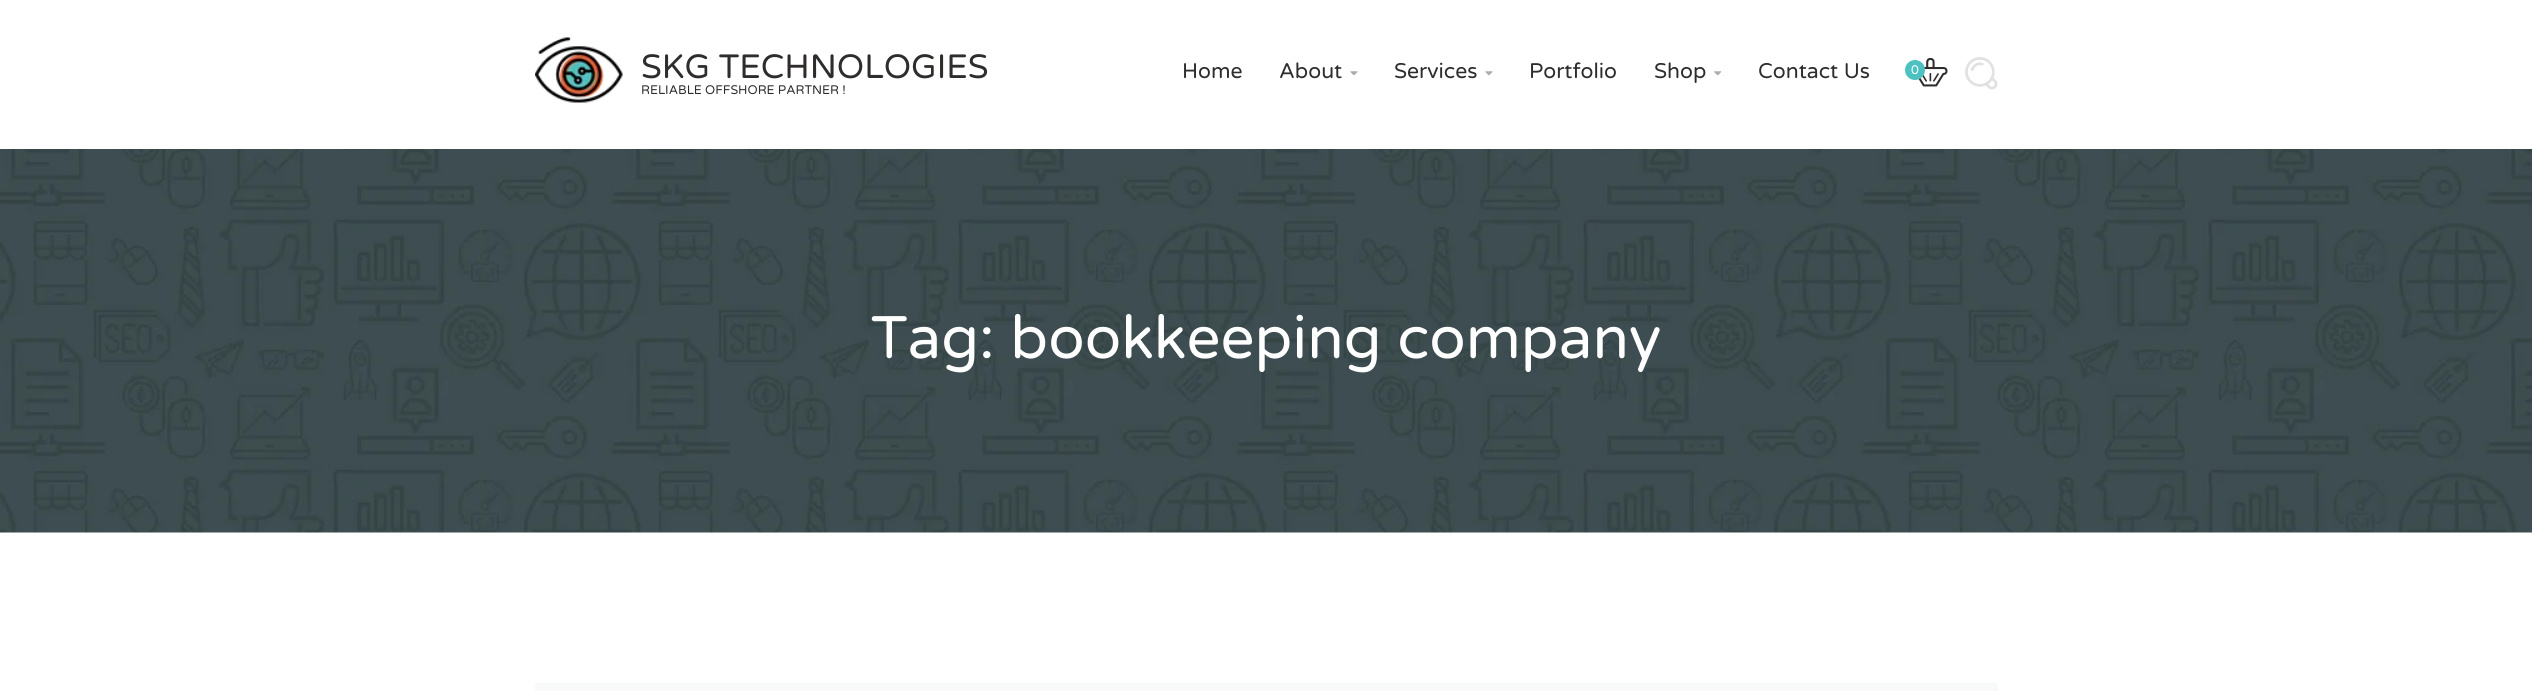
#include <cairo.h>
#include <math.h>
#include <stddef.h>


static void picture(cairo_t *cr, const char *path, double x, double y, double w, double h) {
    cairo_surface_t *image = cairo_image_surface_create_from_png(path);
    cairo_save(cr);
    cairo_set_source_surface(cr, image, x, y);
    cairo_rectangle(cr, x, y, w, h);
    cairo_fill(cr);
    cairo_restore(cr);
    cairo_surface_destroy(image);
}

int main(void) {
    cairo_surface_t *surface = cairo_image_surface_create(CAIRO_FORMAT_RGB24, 2532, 691);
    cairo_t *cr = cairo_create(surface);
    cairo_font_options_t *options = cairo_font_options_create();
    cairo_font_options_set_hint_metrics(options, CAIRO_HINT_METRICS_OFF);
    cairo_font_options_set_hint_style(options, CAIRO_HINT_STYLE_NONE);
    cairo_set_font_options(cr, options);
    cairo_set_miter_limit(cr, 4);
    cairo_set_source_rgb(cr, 1, 1, 1);
    cairo_paint(cr);
    picture(cr, "img1.png", 535, 37, 88, 66);
    cairo_select_font_face(cr, "Varela Round", CAIRO_FONT_SLANT_NORMAL, CAIRO_FONT_WEIGHT_NORMAL);
    cairo_set_font_size(cr, 33.75);
    cairo_set_source_rgb(cr, 0.184, 0.173, 0.173);
    cairo_move_to(cr, 641, 78);
    cairo_show_text(cr, "SKG TECHNOLOGIES");
    cairo_set_font_size(cr, 12.5);
    cairo_move_to(cr, 641, 94);
    cairo_show_text(cr, "RELIABLE OFFSHORE PARTNER !");
    cairo_set_font_size(cr, 21.25);
    cairo_move_to(cr, 1182, 78);
    cairo_show_text(cr, "Home");
    cairo_move_to(cr, 1279, 78);
    cairo_show_text(cr, "About");
    picture(cr, "img2.png", 1350, 71, 8, 5);
    cairo_move_to(cr, 1394, 78);
    cairo_show_text(cr, "Services");
    picture(cr, "img2.png", 1485, 71, 8, 5);
    cairo_move_to(cr, 1529, 78);
    cairo_show_text(cr, "Portfolio");
    cairo_move_to(cr, 1654, 78);
    cairo_show_text(cr, "Shop");
    picture(cr, "img3.png", 1714, 71, 8, 5);
    cairo_move_to(cr, 1758, 78);
    cairo_show_text(cr, "Contact Us");
    picture(cr, "img4.png", 1918, 57, 30, 30);
    cairo_set_source_rgb(cr, 0.298, 0.761, 0.753);
    cairo_arc(cr, 1915, 70, 10, 0, 2 * M_PI);
    cairo_fill(cr);
    cairo_set_font_size(cr, 12.5);
    cairo_set_source_rgb(cr, 1, 1, 1);
    cairo_move_to(cr, 1911, 74);
    cairo_show_text(cr, "0");
    picture(cr, "img5.png", 1965, 57, 33, 33);
    picture(cr, "img6.png", 0, 149, 2532, 384);
    cairo_set_font_size(cr, 60);
    cairo_move_to(cr, 871, 358);
    cairo_show_text(cr, "Tag: bookkeeping company");
    cairo_set_source_rgb(cr, 0.969, 0.976, 0.976);
    cairo_rectangle(cr, 535, 683, 1463, 8);
    cairo_fill(cr);
    cairo_surface_write_to_png(surface, "page.png");
    cairo_font_options_destroy(options);
    cairo_destroy(cr);
    cairo_surface_destroy(surface);
    return 0;
}
